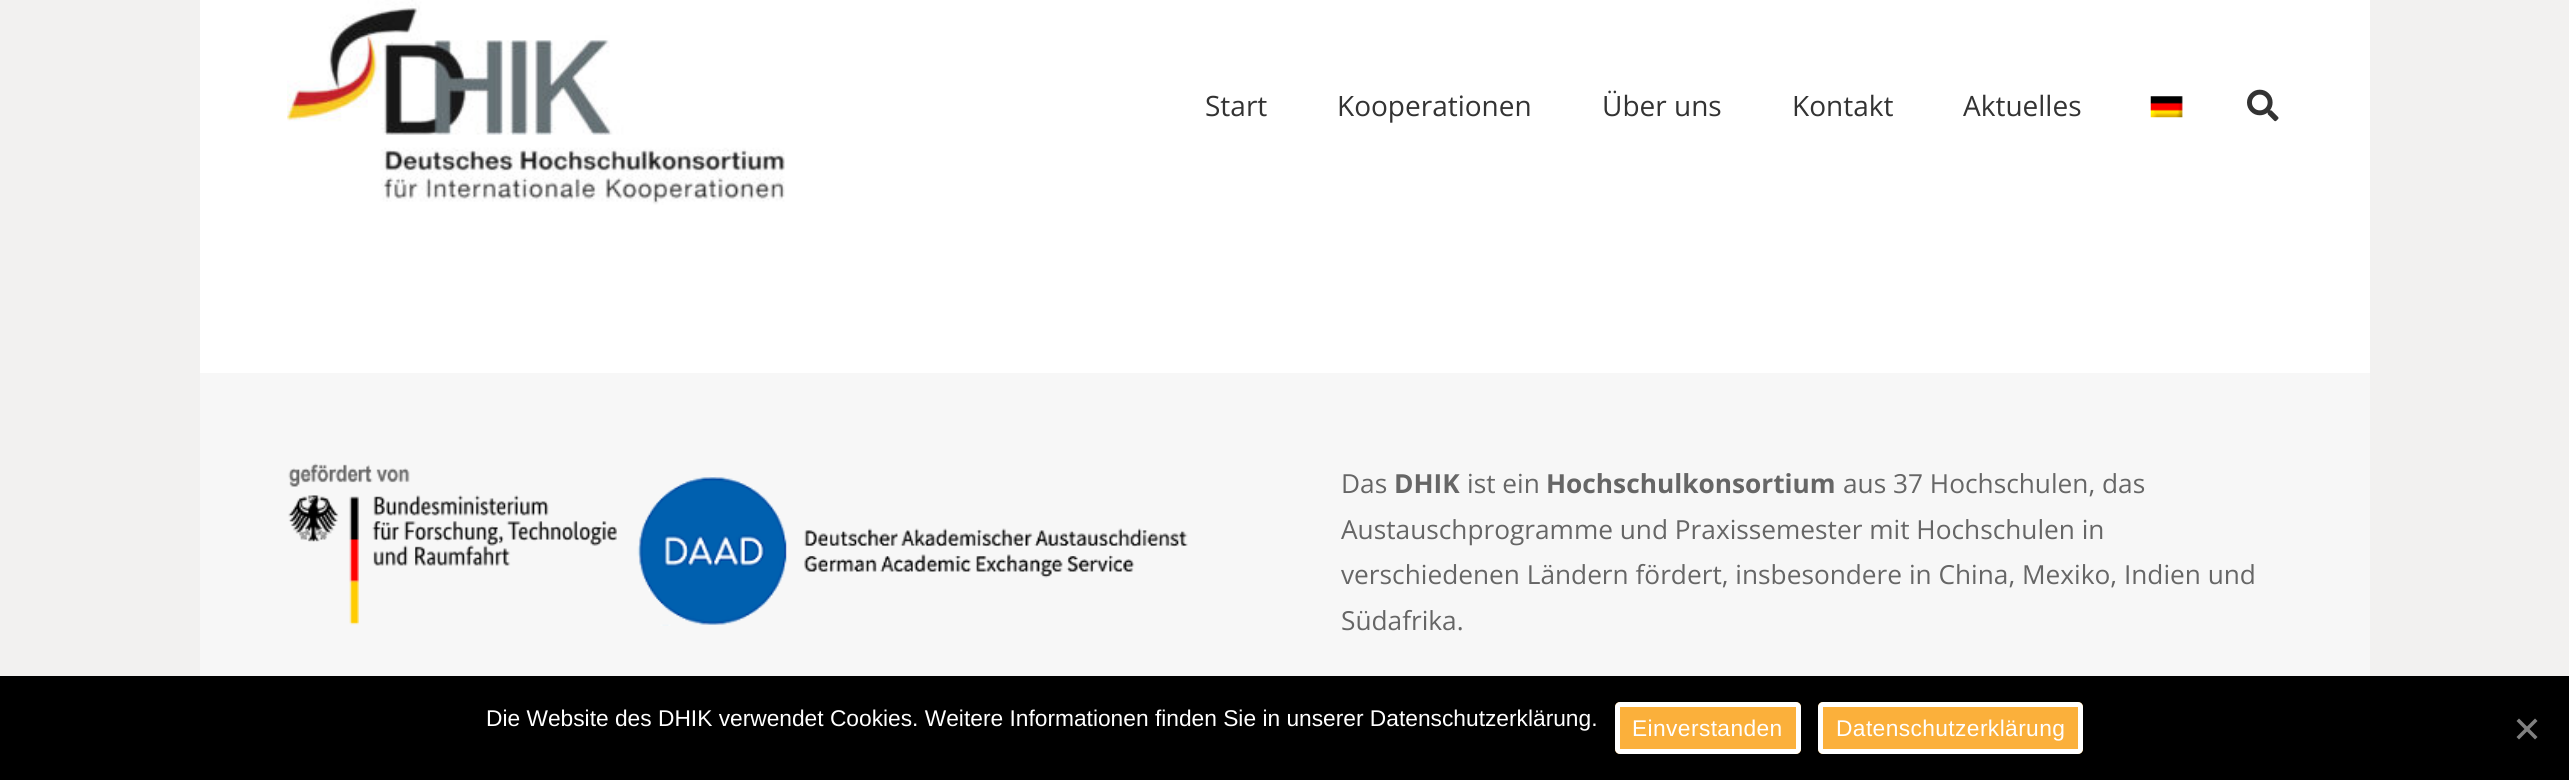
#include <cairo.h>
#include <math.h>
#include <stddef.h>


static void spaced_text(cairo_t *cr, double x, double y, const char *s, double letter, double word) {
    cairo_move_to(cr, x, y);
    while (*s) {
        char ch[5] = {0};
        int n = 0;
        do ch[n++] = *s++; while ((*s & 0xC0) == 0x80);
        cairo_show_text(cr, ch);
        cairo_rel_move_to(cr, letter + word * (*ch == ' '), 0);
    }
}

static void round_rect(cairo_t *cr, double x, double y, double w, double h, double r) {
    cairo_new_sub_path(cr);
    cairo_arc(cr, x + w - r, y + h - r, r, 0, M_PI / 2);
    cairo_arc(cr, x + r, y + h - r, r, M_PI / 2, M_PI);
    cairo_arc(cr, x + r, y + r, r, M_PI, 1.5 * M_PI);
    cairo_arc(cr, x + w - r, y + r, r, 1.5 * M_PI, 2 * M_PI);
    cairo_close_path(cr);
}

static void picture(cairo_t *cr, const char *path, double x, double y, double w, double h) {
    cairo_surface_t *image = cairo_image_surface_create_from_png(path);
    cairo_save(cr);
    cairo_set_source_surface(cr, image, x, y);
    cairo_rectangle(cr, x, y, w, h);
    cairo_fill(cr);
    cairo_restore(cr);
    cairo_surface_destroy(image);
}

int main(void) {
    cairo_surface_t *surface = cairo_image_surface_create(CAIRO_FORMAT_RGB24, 2569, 780);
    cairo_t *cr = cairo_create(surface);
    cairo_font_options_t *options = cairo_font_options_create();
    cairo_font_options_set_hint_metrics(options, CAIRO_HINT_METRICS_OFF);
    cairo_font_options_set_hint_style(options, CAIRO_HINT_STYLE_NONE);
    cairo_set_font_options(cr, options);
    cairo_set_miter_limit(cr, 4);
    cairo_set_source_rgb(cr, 0.949, 0.945, 0.941);
    cairo_paint(cr);
    cairo_set_source_rgb(cr, 1, 1, 1);
    cairo_rectangle(cr, 200, 0, 2170, 373);
    cairo_fill(cr);
    picture(cr, "img1.png", 287, 0, 498, 205);
    cairo_select_font_face(cr, "Open Sans", CAIRO_FONT_SLANT_NORMAL, CAIRO_FONT_WEIGHT_NORMAL);
    cairo_set_font_size(cr, 28);
    cairo_set_source_rgb(cr, 0.2, 0.2, 0.2);
    cairo_move_to(cr, 1205, 116);
    cairo_show_text(cr, "Start");
    cairo_move_to(cr, 1337, 116);
    cairo_show_text(cr, "Kooperationen");
    cairo_move_to(cr, 1602, 116);
    cairo_show_text(cr, "Über uns");
    cairo_move_to(cr, 1792, 116);
    cairo_show_text(cr, "Kontakt");
    cairo_move_to(cr, 1963, 116);
    cairo_show_text(cr, "Aktuelles");
    picture(cr, "img2.png", 2150, 96, 33, 22);
    picture(cr, "img3.png", 2247, 89, 32, 33);
    cairo_set_source_rgb(cr, 0.965, 0.965, 0.965);
    cairo_rectangle(cr, 200, 373, 2170, 303);
    cairo_fill(cr);
    picture(cr, "img4.png", 288, 463, 900, 163);
    cairo_set_font_size(cr, 26.25);
    cairo_set_source_rgb(cr, 0.4, 0.4, 0.4);
    cairo_move_to(cr, 1341, 493);
    cairo_show_text(cr, "Das");
    cairo_select_font_face(cr, "Open Sans", CAIRO_FONT_SLANT_NORMAL, CAIRO_FONT_WEIGHT_BOLD);
    cairo_move_to(cr, 1394, 493);
    cairo_show_text(cr, "DHIK");
    cairo_select_font_face(cr, "Open Sans", CAIRO_FONT_SLANT_NORMAL, CAIRO_FONT_WEIGHT_NORMAL);
    cairo_move_to(cr, 1467, 493);
    cairo_show_text(cr, "ist ein");
    cairo_select_font_face(cr, "Open Sans", CAIRO_FONT_SLANT_NORMAL, CAIRO_FONT_WEIGHT_BOLD);
    cairo_move_to(cr, 1546, 493);
    cairo_show_text(cr, "Hochschulkonsortium");
    cairo_select_font_face(cr, "Open Sans", CAIRO_FONT_SLANT_NORMAL, CAIRO_FONT_WEIGHT_NORMAL);
    cairo_move_to(cr, 1843, 493);
    cairo_show_text(cr, "aus 37 Hochschulen, das");
    cairo_move_to(cr, 1341, 539);
    cairo_show_text(cr, "Austauschprogramme und Praxissemester mit Hochschulen in");
    cairo_move_to(cr, 1341, 584);
    cairo_show_text(cr, "verschiedenen Ländern fördert, insbesondere in China, Mexiko, Indien und");
    cairo_move_to(cr, 1341, 630);
    cairo_show_text(cr, "Südafrika.");
    cairo_set_source_rgb(cr, 0, 0, 0);
    cairo_rectangle(cr, 0, 676, 2569, 104);
    cairo_fill(cr);
    cairo_select_font_face(cr, "Liberation Sans", CAIRO_FONT_SLANT_NORMAL, CAIRO_FONT_WEIGHT_NORMAL);
    cairo_set_font_size(cr, 22.75);
    cairo_set_source_rgb(cr, 1, 1, 1);
    cairo_move_to(cr, 486, 726);
    cairo_show_text(cr, "Die Website des DHIK verwendet Cookies. Weitere Informationen finden Sie in unserer Datenschutzerklärung.");
    cairo_set_source_rgb(cr, 0.984, 0.69, 0.231);
    round_rect(cr, 1615, 702, 186, 52, 5);
    cairo_fill(cr);
    round_rect(cr, 1617.5, 704.5, 181, 47, 2.5);
    cairo_set_source_rgb(cr, 1, 1, 1);
    cairo_set_line_width(cr, 5);
    cairo_stroke(cr);
    spaced_text(cr, 1632, 736, "Einverstanden", 0.4, 0);
    cairo_set_source_rgb(cr, 0.984, 0.69, 0.231);
    round_rect(cr, 1818, 702, 265, 52, 5);
    cairo_fill(cr);
    round_rect(cr, 1820.5, 704.5, 260, 47, 2.5);
    cairo_set_source_rgb(cr, 1, 1, 1);
    cairo_stroke(cr);
    spaced_text(cr, 1836, 736, "Datenschutzerklärung", 0.4, 0);
    cairo_set_source_rgb(cr, 0.502, 0.502, 0.502);
    cairo_new_path(cr);
    cairo_move_to(cr, 2535, 718.5);
    cairo_line_to(cr, 2537.5, 721);
    cairo_line_to(cr, 2519, 739.5);
    cairo_line_to(cr, 2516.5, 737);
    cairo_close_path(cr);
    cairo_fill(cr);
    cairo_new_path(cr);
    cairo_move_to(cr, 2516.5, 721);
    cairo_line_to(cr, 2519, 718.5);
    cairo_line_to(cr, 2537.5, 737);
    cairo_line_to(cr, 2535, 739.5);
    cairo_close_path(cr);
    cairo_fill(cr);
    cairo_surface_write_to_png(surface, "page.png");
    cairo_font_options_destroy(options);
    cairo_destroy(cr);
    cairo_surface_destroy(surface);
    return 0;
}
